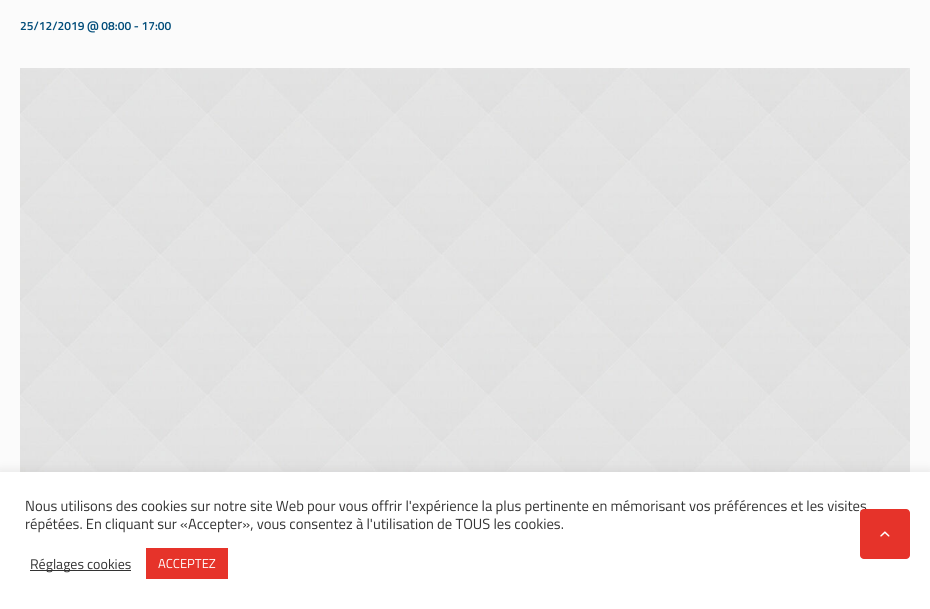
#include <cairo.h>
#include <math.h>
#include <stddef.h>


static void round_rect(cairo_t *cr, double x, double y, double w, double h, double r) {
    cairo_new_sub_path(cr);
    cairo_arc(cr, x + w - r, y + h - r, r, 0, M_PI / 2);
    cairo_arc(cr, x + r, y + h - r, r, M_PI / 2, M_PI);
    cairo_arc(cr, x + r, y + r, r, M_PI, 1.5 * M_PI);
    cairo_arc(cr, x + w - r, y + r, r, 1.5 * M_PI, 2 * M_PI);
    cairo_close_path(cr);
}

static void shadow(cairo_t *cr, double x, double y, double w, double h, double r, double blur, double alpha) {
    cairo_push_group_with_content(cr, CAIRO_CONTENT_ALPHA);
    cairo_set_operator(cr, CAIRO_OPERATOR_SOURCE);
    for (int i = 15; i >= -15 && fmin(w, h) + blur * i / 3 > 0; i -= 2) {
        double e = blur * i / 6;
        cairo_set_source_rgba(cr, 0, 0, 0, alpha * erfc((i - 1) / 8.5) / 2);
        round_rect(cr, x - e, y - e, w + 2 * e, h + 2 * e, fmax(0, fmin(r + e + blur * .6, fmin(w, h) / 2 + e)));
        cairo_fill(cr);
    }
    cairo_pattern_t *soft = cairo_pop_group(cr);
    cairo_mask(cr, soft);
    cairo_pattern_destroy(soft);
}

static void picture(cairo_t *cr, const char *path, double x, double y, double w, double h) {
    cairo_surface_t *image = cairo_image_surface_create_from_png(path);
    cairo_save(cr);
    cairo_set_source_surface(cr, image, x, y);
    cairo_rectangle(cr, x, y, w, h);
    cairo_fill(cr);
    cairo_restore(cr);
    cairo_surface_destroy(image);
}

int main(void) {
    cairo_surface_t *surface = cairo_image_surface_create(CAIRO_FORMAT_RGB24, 930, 609);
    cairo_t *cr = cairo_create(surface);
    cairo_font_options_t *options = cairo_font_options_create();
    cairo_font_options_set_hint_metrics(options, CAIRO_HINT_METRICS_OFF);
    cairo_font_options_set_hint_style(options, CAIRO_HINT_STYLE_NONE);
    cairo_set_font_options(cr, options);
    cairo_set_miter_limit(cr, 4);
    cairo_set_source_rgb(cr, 0.984, 0.984, 0.984);
    cairo_paint(cr);
    cairo_select_font_face(cr, "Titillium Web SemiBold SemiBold", CAIRO_FONT_SLANT_NORMAL, CAIRO_FONT_WEIGHT_NORMAL);
    cairo_set_font_size(cr, 12);
    cairo_set_source_rgb(cr, 0, 0.298, 0.475);
    cairo_move_to(cr, 20, 30);
    cairo_show_text(cr, "25/12/2019 @ 08:00 - 17:00");
    picture(cr, "img1.png", 20, 68, 890, 404);
    cairo_set_source_rgb(cr, 0.675, 0.671, 0.671);
    shadow(cr, 0, 471, 930, 137, 0, 5, 0.3);
    cairo_set_source_rgb(cr, 1, 1, 1);
    cairo_rectangle(cr, 0, 472, 930, 137);
    cairo_fill(cr);
    cairo_select_font_face(cr, "Titillium Web", CAIRO_FONT_SLANT_NORMAL, CAIRO_FONT_WEIGHT_NORMAL);
    cairo_set_font_size(cr, 14.67);
    cairo_set_source_rgb(cr, 0.2, 0.2, 0.2);
    cairo_move_to(cr, 25, 511);
    cairo_show_text(cr, "Nous utilisons des cookies sur notre site Web pour vous offrir l'expérience la plus pertinente en mémorisant vos préférences et les visites");
    cairo_set_source_rgb(cr, 0.902, 0.2, 0.165);
    round_rect(cr, 860, 509, 50, 50, 4);
    cairo_fill(cr);
    picture(cr, "img2.png", 880, 531, 10, 6);
    cairo_set_source_rgb(cr, 0.2, 0.2, 0.2);
    cairo_move_to(cr, 25, 529);
    cairo_show_text(cr, "répétées. En cliquant sur «Accepter», vous consentez à l'utilisation de TOUS les cookies.");
    cairo_rectangle(cr, 30, 570, 101, 1);
    cairo_fill(cr);
    cairo_set_font_size(cr, 14);
    cairo_move_to(cr, 30, 569);
    cairo_show_text(cr, "Réglages cookies");
    cairo_set_source_rgb(cr, 0.902, 0.2, 0.165);
    cairo_rectangle(cr, 146, 548, 82, 31);
    cairo_fill(cr);
    cairo_set_font_size(cr, 13);
    cairo_set_source_rgb(cr, 1, 1, 1);
    cairo_move_to(cr, 158, 568);
    cairo_show_text(cr, "ACCEPTEZ");
    cairo_surface_write_to_png(surface, "page.png");
    cairo_font_options_destroy(options);
    cairo_destroy(cr);
    cairo_surface_destroy(surface);
    return 0;
}
